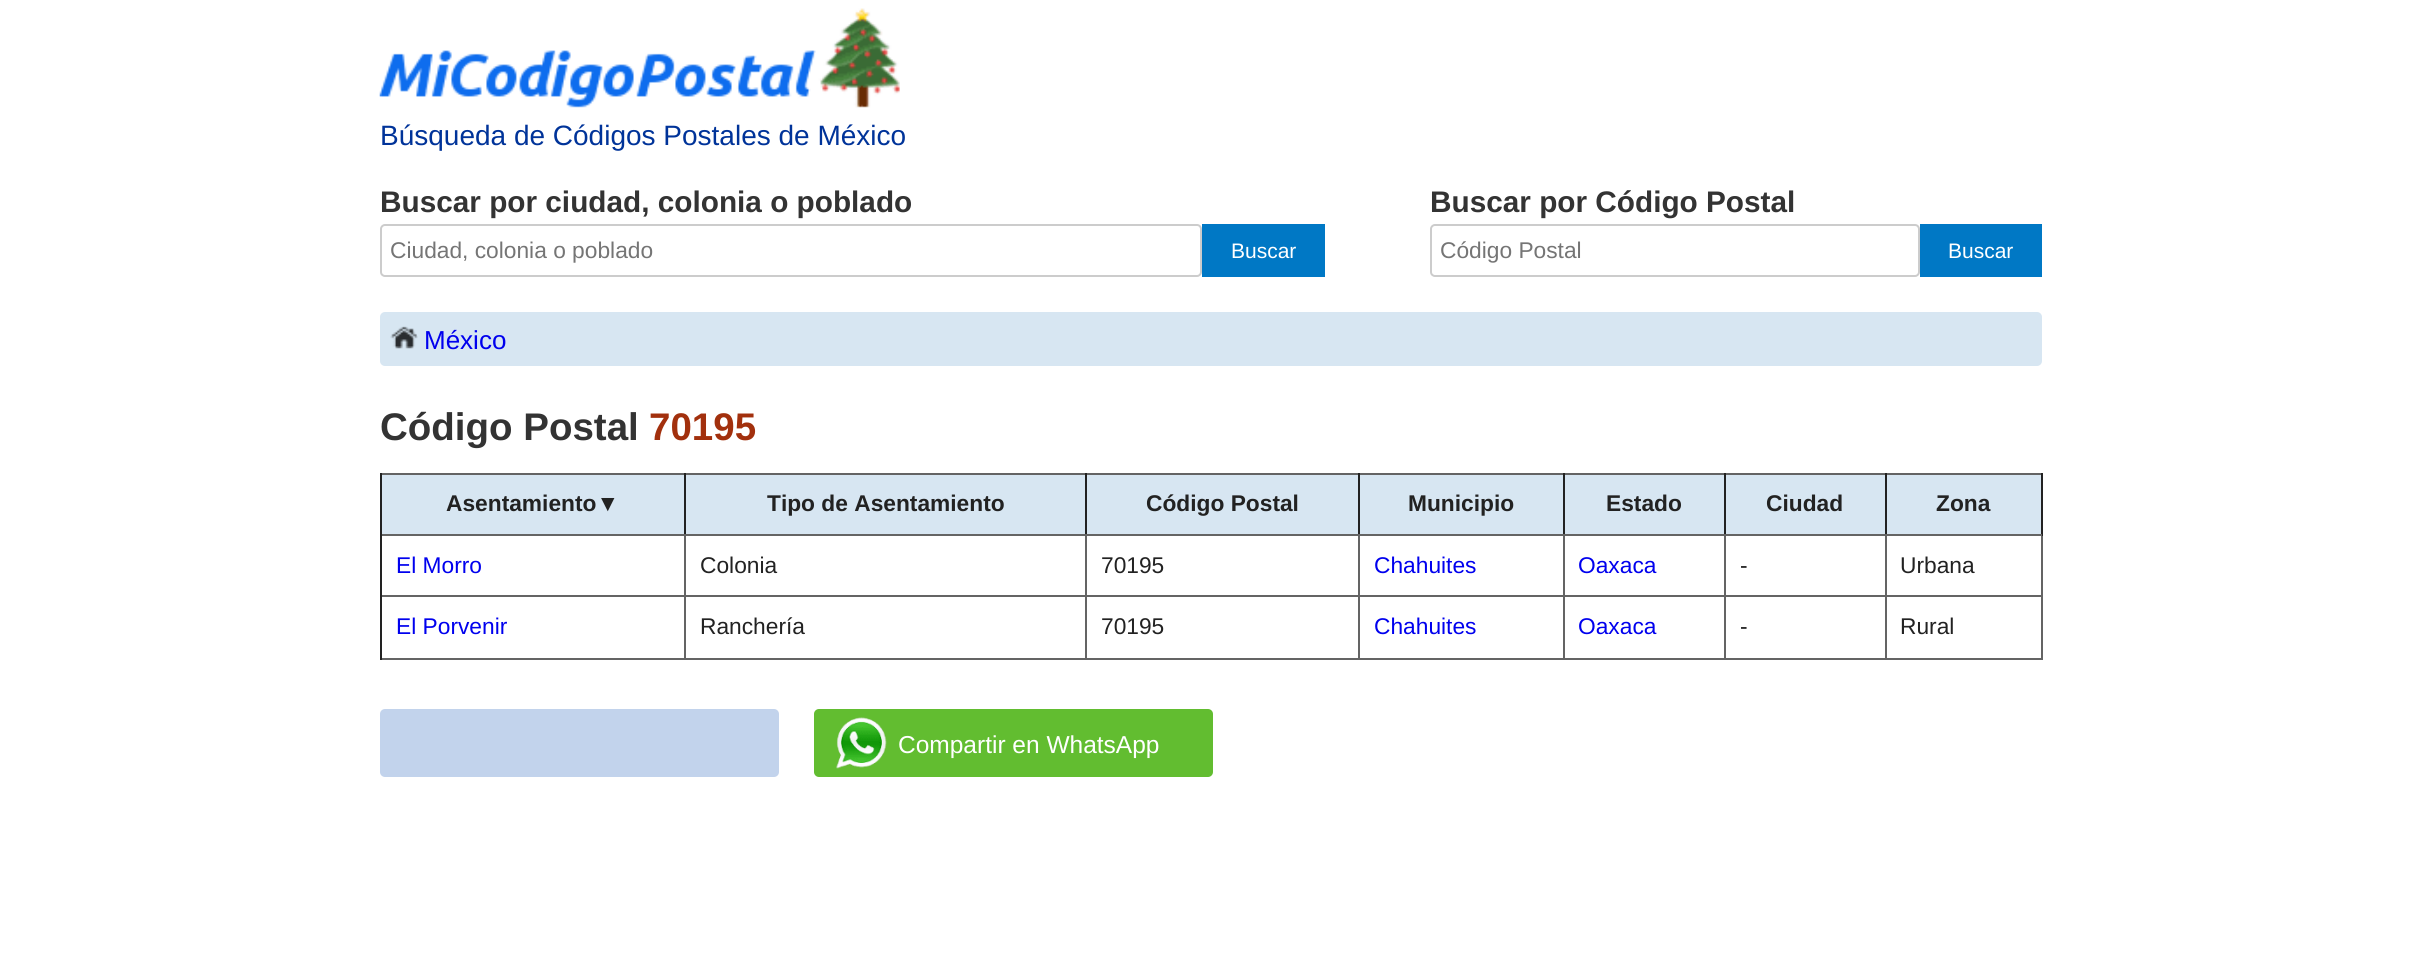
#include <cairo.h>
#include <math.h>
#include <stddef.h>


static void round_rect(cairo_t *cr, double x, double y, double w, double h, double r) {
    cairo_new_sub_path(cr);
    cairo_arc(cr, x + w - r, y + h - r, r, 0, M_PI / 2);
    cairo_arc(cr, x + r, y + h - r, r, M_PI / 2, M_PI);
    cairo_arc(cr, x + r, y + r, r, M_PI, 1.5 * M_PI);
    cairo_arc(cr, x + w - r, y + r, r, 1.5 * M_PI, 2 * M_PI);
    cairo_close_path(cr);
}

static void picture(cairo_t *cr, const char *path, double x, double y, double w, double h) {
    cairo_surface_t *image = cairo_image_surface_create_from_png(path);
    cairo_save(cr);
    cairo_set_source_surface(cr, image, x, y);
    cairo_rectangle(cr, x, y, w, h);
    cairo_fill(cr);
    cairo_restore(cr);
    cairo_surface_destroy(image);
}

int main(void) {
    cairo_surface_t *surface = cairo_image_surface_create(CAIRO_FORMAT_RGB24, 2422, 976);
    cairo_t *cr = cairo_create(surface);
    cairo_font_options_t *options = cairo_font_options_create();
    cairo_font_options_set_hint_metrics(options, CAIRO_HINT_METRICS_OFF);
    cairo_font_options_set_hint_style(options, CAIRO_HINT_STYLE_NONE);
    cairo_set_font_options(cr, options);
    cairo_set_miter_limit(cr, 4);
    cairo_set_source_rgb(cr, 1, 1, 1);
    cairo_paint(cr);
    picture(cr, "img1.png", 379, 8, 521, 100);
    cairo_select_font_face(cr, "Liberation Sans", CAIRO_FONT_SLANT_NORMAL, CAIRO_FONT_WEIGHT_NORMAL);
    cairo_set_font_size(cr, 28);
    cairo_set_source_rgb(cr, 0, 0.2, 0.6);
    cairo_move_to(cr, 380, 145);
    cairo_show_text(cr, "Búsqueda de Códigos Postales de México");
    cairo_select_font_face(cr, "Liberation Sans", CAIRO_FONT_SLANT_NORMAL, CAIRO_FONT_WEIGHT_BOLD);
    cairo_set_font_size(cr, 29.75);
    cairo_set_source_rgb(cr, 0.2, 0.2, 0.2);
    cairo_move_to(cr, 380, 212);
    cairo_show_text(cr, "Buscar por ciudad, colonia o poblado");
    round_rect(cr, 381, 225, 820, 51, 4);
    cairo_set_source_rgb(cr, 0.8, 0.8, 0.8);
    cairo_stroke(cr);
    cairo_select_font_face(cr, "Liberation Sans", CAIRO_FONT_SLANT_NORMAL, CAIRO_FONT_WEIGHT_NORMAL);
    cairo_set_font_size(cr, 22.75);
    cairo_set_source_rgb(cr, 0.459, 0.459, 0.459);
    cairo_move_to(cr, 390, 258);
    cairo_show_text(cr, "Ciudad, colonia o poblado");
    cairo_set_source_rgb(cr, 0, 0.471, 0.773);
    cairo_rectangle(cr, 1202, 224, 123, 53);
    cairo_fill(cr);
    cairo_set_font_size(cr, 21);
    cairo_set_source_rgb(cr, 1, 1, 1);
    cairo_move_to(cr, 1231, 258);
    cairo_show_text(cr, "Buscar");
    cairo_select_font_face(cr, "Liberation Sans", CAIRO_FONT_SLANT_NORMAL, CAIRO_FONT_WEIGHT_BOLD);
    cairo_set_font_size(cr, 29.75);
    cairo_set_source_rgb(cr, 0.2, 0.2, 0.2);
    cairo_move_to(cr, 1430, 212);
    cairo_show_text(cr, "Buscar por Código Postal");
    round_rect(cr, 1431, 225, 488, 51, 4);
    cairo_set_source_rgb(cr, 0.8, 0.8, 0.8);
    cairo_stroke(cr);
    cairo_select_font_face(cr, "Liberation Sans", CAIRO_FONT_SLANT_NORMAL, CAIRO_FONT_WEIGHT_NORMAL);
    cairo_set_font_size(cr, 22.75);
    cairo_set_source_rgb(cr, 0.459, 0.459, 0.459);
    cairo_move_to(cr, 1440, 258);
    cairo_show_text(cr, "Código Postal");
    cairo_set_source_rgb(cr, 0, 0.471, 0.773);
    cairo_rectangle(cr, 1920, 224, 122, 53);
    cairo_fill(cr);
    cairo_set_font_size(cr, 21);
    cairo_set_source_rgb(cr, 1, 1, 1);
    cairo_move_to(cr, 1948, 258);
    cairo_show_text(cr, "Buscar");
    cairo_set_source_rgb(cr, 0.843, 0.902, 0.949);
    round_rect(cr, 380, 312, 1662, 54, 5);
    cairo_fill(cr);
    picture(cr, "img2.png", 390, 326, 28, 23);
    cairo_set_font_size(cr, 26);
    cairo_set_source_rgb(cr, 0, 0, 0.933);
    cairo_move_to(cr, 424, 349);
    cairo_show_text(cr, "México");
    cairo_select_font_face(cr, "Liberation Sans", CAIRO_FONT_SLANT_NORMAL, CAIRO_FONT_WEIGHT_BOLD);
    cairo_set_font_size(cr, 38.5);
    cairo_set_source_rgb(cr, 0.2, 0.2, 0.2);
    cairo_move_to(cr, 380, 440);
    cairo_show_text(cr, "Código Postal");
    cairo_set_source_rgb(cr, 0.635, 0.188, 0.051);
    cairo_move_to(cr, 649, 440);
    cairo_show_text(cr, "70195");
    cairo_set_source_rgb(cr, 0.843, 0.902, 0.949);
    cairo_rectangle(cr, 382, 475, 302, 59);
    cairo_fill(cr);
    cairo_set_source_rgb(cr, 0.392, 0.392, 0.392);
    cairo_rectangle(cr, 380, 473, 1662, 2);
    cairo_fill(cr);
    cairo_set_source_rgb(cr, 0.133, 0.133, 0.133);
    cairo_rectangle(cr, 684, 473, 2, 63);
    cairo_fill(cr);
    cairo_set_source_rgb(cr, 0.392, 0.392, 0.392);
    cairo_rectangle(cr, 380, 534, 306, 2);
    cairo_fill(cr);
    cairo_set_source_rgb(cr, 0.133, 0.133, 0.133);
    cairo_rectangle(cr, 380, 473, 2, 63);
    cairo_fill(cr);
    cairo_set_font_size(cr, 22.75);
    cairo_move_to(cr, 446, 511);
    cairo_show_text(cr, "Asentamiento▼");
    cairo_set_source_rgb(cr, 0.843, 0.902, 0.949);
    cairo_rectangle(cr, 686, 475, 399, 59);
    cairo_fill(cr);
    cairo_set_source_rgb(cr, 0.133, 0.133, 0.133);
    cairo_rectangle(cr, 1085, 473, 2, 63);
    cairo_fill(cr);
    cairo_set_source_rgb(cr, 0.392, 0.392, 0.392);
    cairo_rectangle(cr, 686, 534, 401, 2);
    cairo_fill(cr);
    cairo_set_source_rgb(cr, 0.133, 0.133, 0.133);
    cairo_move_to(cr, 767, 511);
    cairo_show_text(cr, "Tipo de Asentamiento");
    cairo_set_source_rgb(cr, 0.843, 0.902, 0.949);
    cairo_rectangle(cr, 1087, 475, 271, 59);
    cairo_fill(cr);
    cairo_set_source_rgb(cr, 0.133, 0.133, 0.133);
    cairo_rectangle(cr, 1358, 473, 2, 63);
    cairo_fill(cr);
    cairo_set_source_rgb(cr, 0.392, 0.392, 0.392);
    cairo_rectangle(cr, 1087, 534, 273, 2);
    cairo_fill(cr);
    cairo_set_source_rgb(cr, 0.133, 0.133, 0.133);
    cairo_move_to(cr, 1146, 511);
    cairo_show_text(cr, "Código Postal");
    cairo_set_source_rgb(cr, 0.843, 0.902, 0.949);
    cairo_rectangle(cr, 1360, 475, 203, 59);
    cairo_fill(cr);
    cairo_set_source_rgb(cr, 0.133, 0.133, 0.133);
    cairo_rectangle(cr, 1563, 473, 2, 63);
    cairo_fill(cr);
    cairo_set_source_rgb(cr, 0.392, 0.392, 0.392);
    cairo_rectangle(cr, 1360, 534, 205, 2);
    cairo_fill(cr);
    cairo_set_source_rgb(cr, 0.133, 0.133, 0.133);
    cairo_move_to(cr, 1408, 511);
    cairo_show_text(cr, "Municipio");
    cairo_set_source_rgb(cr, 0.843, 0.902, 0.949);
    cairo_rectangle(cr, 1565, 475, 159, 59);
    cairo_fill(cr);
    cairo_set_source_rgb(cr, 0.133, 0.133, 0.133);
    cairo_rectangle(cr, 1724, 473, 2, 63);
    cairo_fill(cr);
    cairo_set_source_rgb(cr, 0.392, 0.392, 0.392);
    cairo_rectangle(cr, 1565, 534, 161, 2);
    cairo_fill(cr);
    cairo_set_source_rgb(cr, 0.133, 0.133, 0.133);
    cairo_move_to(cr, 1606, 511);
    cairo_show_text(cr, "Estado");
    cairo_set_source_rgb(cr, 0.843, 0.902, 0.949);
    cairo_rectangle(cr, 1726, 475, 159, 59);
    cairo_fill(cr);
    cairo_set_source_rgb(cr, 0.133, 0.133, 0.133);
    cairo_rectangle(cr, 1885, 473, 2, 63);
    cairo_fill(cr);
    cairo_set_source_rgb(cr, 0.392, 0.392, 0.392);
    cairo_rectangle(cr, 1726, 534, 161, 2);
    cairo_fill(cr);
    cairo_set_source_rgb(cr, 0.133, 0.133, 0.133);
    cairo_move_to(cr, 1766, 511);
    cairo_show_text(cr, "Ciudad");
    cairo_set_source_rgb(cr, 0.843, 0.902, 0.949);
    cairo_rectangle(cr, 1887, 475, 154, 59);
    cairo_fill(cr);
    cairo_set_source_rgb(cr, 0.133, 0.133, 0.133);
    cairo_rectangle(cr, 2041, 473, 2, 63);
    cairo_fill(cr);
    cairo_set_source_rgb(cr, 0.392, 0.392, 0.392);
    cairo_rectangle(cr, 1887, 534, 155, 2);
    cairo_fill(cr);
    cairo_set_source_rgb(cr, 0.133, 0.133, 0.133);
    cairo_move_to(cr, 1936, 511);
    cairo_show_text(cr, "Zona");
    cairo_set_source_rgb(cr, 0.392, 0.392, 0.392);
    cairo_rectangle(cr, 684, 536, 2, 124);
    cairo_fill(cr);
    cairo_rectangle(cr, 380, 595, 306, 2);
    cairo_fill(cr);
    cairo_set_source_rgb(cr, 0.133, 0.133, 0.133);
    cairo_rectangle(cr, 380, 536, 2, 61);
    cairo_fill(cr);
    cairo_select_font_face(cr, "Liberation Sans", CAIRO_FONT_SLANT_NORMAL, CAIRO_FONT_WEIGHT_NORMAL);
    cairo_set_source_rgb(cr, 0, 0, 0.933);
    cairo_move_to(cr, 396, 573);
    cairo_show_text(cr, "El Morro");
    cairo_set_source_rgb(cr, 0.392, 0.392, 0.392);
    cairo_rectangle(cr, 1085, 536, 2, 124);
    cairo_fill(cr);
    cairo_rectangle(cr, 686, 595, 401, 2);
    cairo_fill(cr);
    cairo_set_source_rgb(cr, 0.133, 0.133, 0.133);
    cairo_move_to(cr, 700, 573);
    cairo_show_text(cr, "Colonia");
    cairo_set_source_rgb(cr, 0.392, 0.392, 0.392);
    cairo_rectangle(cr, 1358, 536, 2, 124);
    cairo_fill(cr);
    cairo_rectangle(cr, 1087, 595, 273, 2);
    cairo_fill(cr);
    cairo_set_source_rgb(cr, 0.133, 0.133, 0.133);
    cairo_move_to(cr, 1101, 573);
    cairo_show_text(cr, "70195");
    cairo_set_source_rgb(cr, 0.392, 0.392, 0.392);
    cairo_rectangle(cr, 1563, 536, 2, 124);
    cairo_fill(cr);
    cairo_rectangle(cr, 1360, 595, 205, 2);
    cairo_fill(cr);
    cairo_set_source_rgb(cr, 0, 0, 0.933);
    cairo_move_to(cr, 1374, 573);
    cairo_show_text(cr, "Chahuites");
    cairo_set_source_rgb(cr, 0.392, 0.392, 0.392);
    cairo_rectangle(cr, 1724, 536, 2, 124);
    cairo_fill(cr);
    cairo_rectangle(cr, 1565, 595, 161, 2);
    cairo_fill(cr);
    cairo_set_source_rgb(cr, 0, 0, 0.933);
    cairo_move_to(cr, 1578, 573);
    cairo_show_text(cr, "Oaxaca");
    cairo_set_source_rgb(cr, 0.392, 0.392, 0.392);
    cairo_rectangle(cr, 1885, 536, 2, 124);
    cairo_fill(cr);
    cairo_rectangle(cr, 1726, 595, 161, 2);
    cairo_fill(cr);
    cairo_set_source_rgb(cr, 0.133, 0.133, 0.133);
    cairo_move_to(cr, 1740, 573);
    cairo_show_text(cr, "-");
    cairo_set_source_rgb(cr, 0.392, 0.392, 0.392);
    cairo_rectangle(cr, 2041, 536, 2, 124);
    cairo_fill(cr);
    cairo_rectangle(cr, 1887, 595, 155, 2);
    cairo_fill(cr);
    cairo_set_source_rgb(cr, 0.133, 0.133, 0.133);
    cairo_move_to(cr, 1900, 573);
    cairo_show_text(cr, "Urbana");
    cairo_set_source_rgb(cr, 0.392, 0.392, 0.392);
    cairo_rectangle(cr, 380, 658, 1662, 2);
    cairo_fill(cr);
    cairo_set_source_rgb(cr, 0.133, 0.133, 0.133);
    cairo_rectangle(cr, 380, 597, 2, 63);
    cairo_fill(cr);
    cairo_set_source_rgb(cr, 0, 0, 0.933);
    cairo_move_to(cr, 396, 634);
    cairo_show_text(cr, "El Porvenir");
    cairo_set_source_rgb(cr, 0.133, 0.133, 0.133);
    cairo_move_to(cr, 700, 634);
    cairo_show_text(cr, "Ranchería");
    cairo_move_to(cr, 1101, 634);
    cairo_show_text(cr, "70195");
    cairo_set_source_rgb(cr, 0, 0, 0.933);
    cairo_move_to(cr, 1374, 634);
    cairo_show_text(cr, "Chahuites");
    cairo_move_to(cr, 1578, 634);
    cairo_show_text(cr, "Oaxaca");
    cairo_set_source_rgb(cr, 0.133, 0.133, 0.133);
    cairo_move_to(cr, 1740, 634);
    cairo_show_text(cr, "-");
    cairo_move_to(cr, 1900, 634);
    cairo_show_text(cr, "Rural");
    cairo_set_source_rgb(cr, 0.761, 0.827, 0.925);
    round_rect(cr, 380, 709, 399, 68, 5);
    cairo_fill(cr);
    cairo_set_source_rgb(cr, 0.384, 0.741, 0.188);
    round_rect(cr, 814, 709, 399, 68, 5);
    cairo_fill(cr);
    picture(cr, "img3.png", 836, 717, 51, 52);
    cairo_set_font_size(cr, 24.5);
    cairo_set_source_rgb(cr, 1, 1, 1);
    cairo_move_to(cr, 898, 753);
    cairo_show_text(cr, "Compartir en WhatsApp");
    cairo_surface_write_to_png(surface, "page.png");
    cairo_font_options_destroy(options);
    cairo_destroy(cr);
    cairo_surface_destroy(surface);
    return 0;
}
